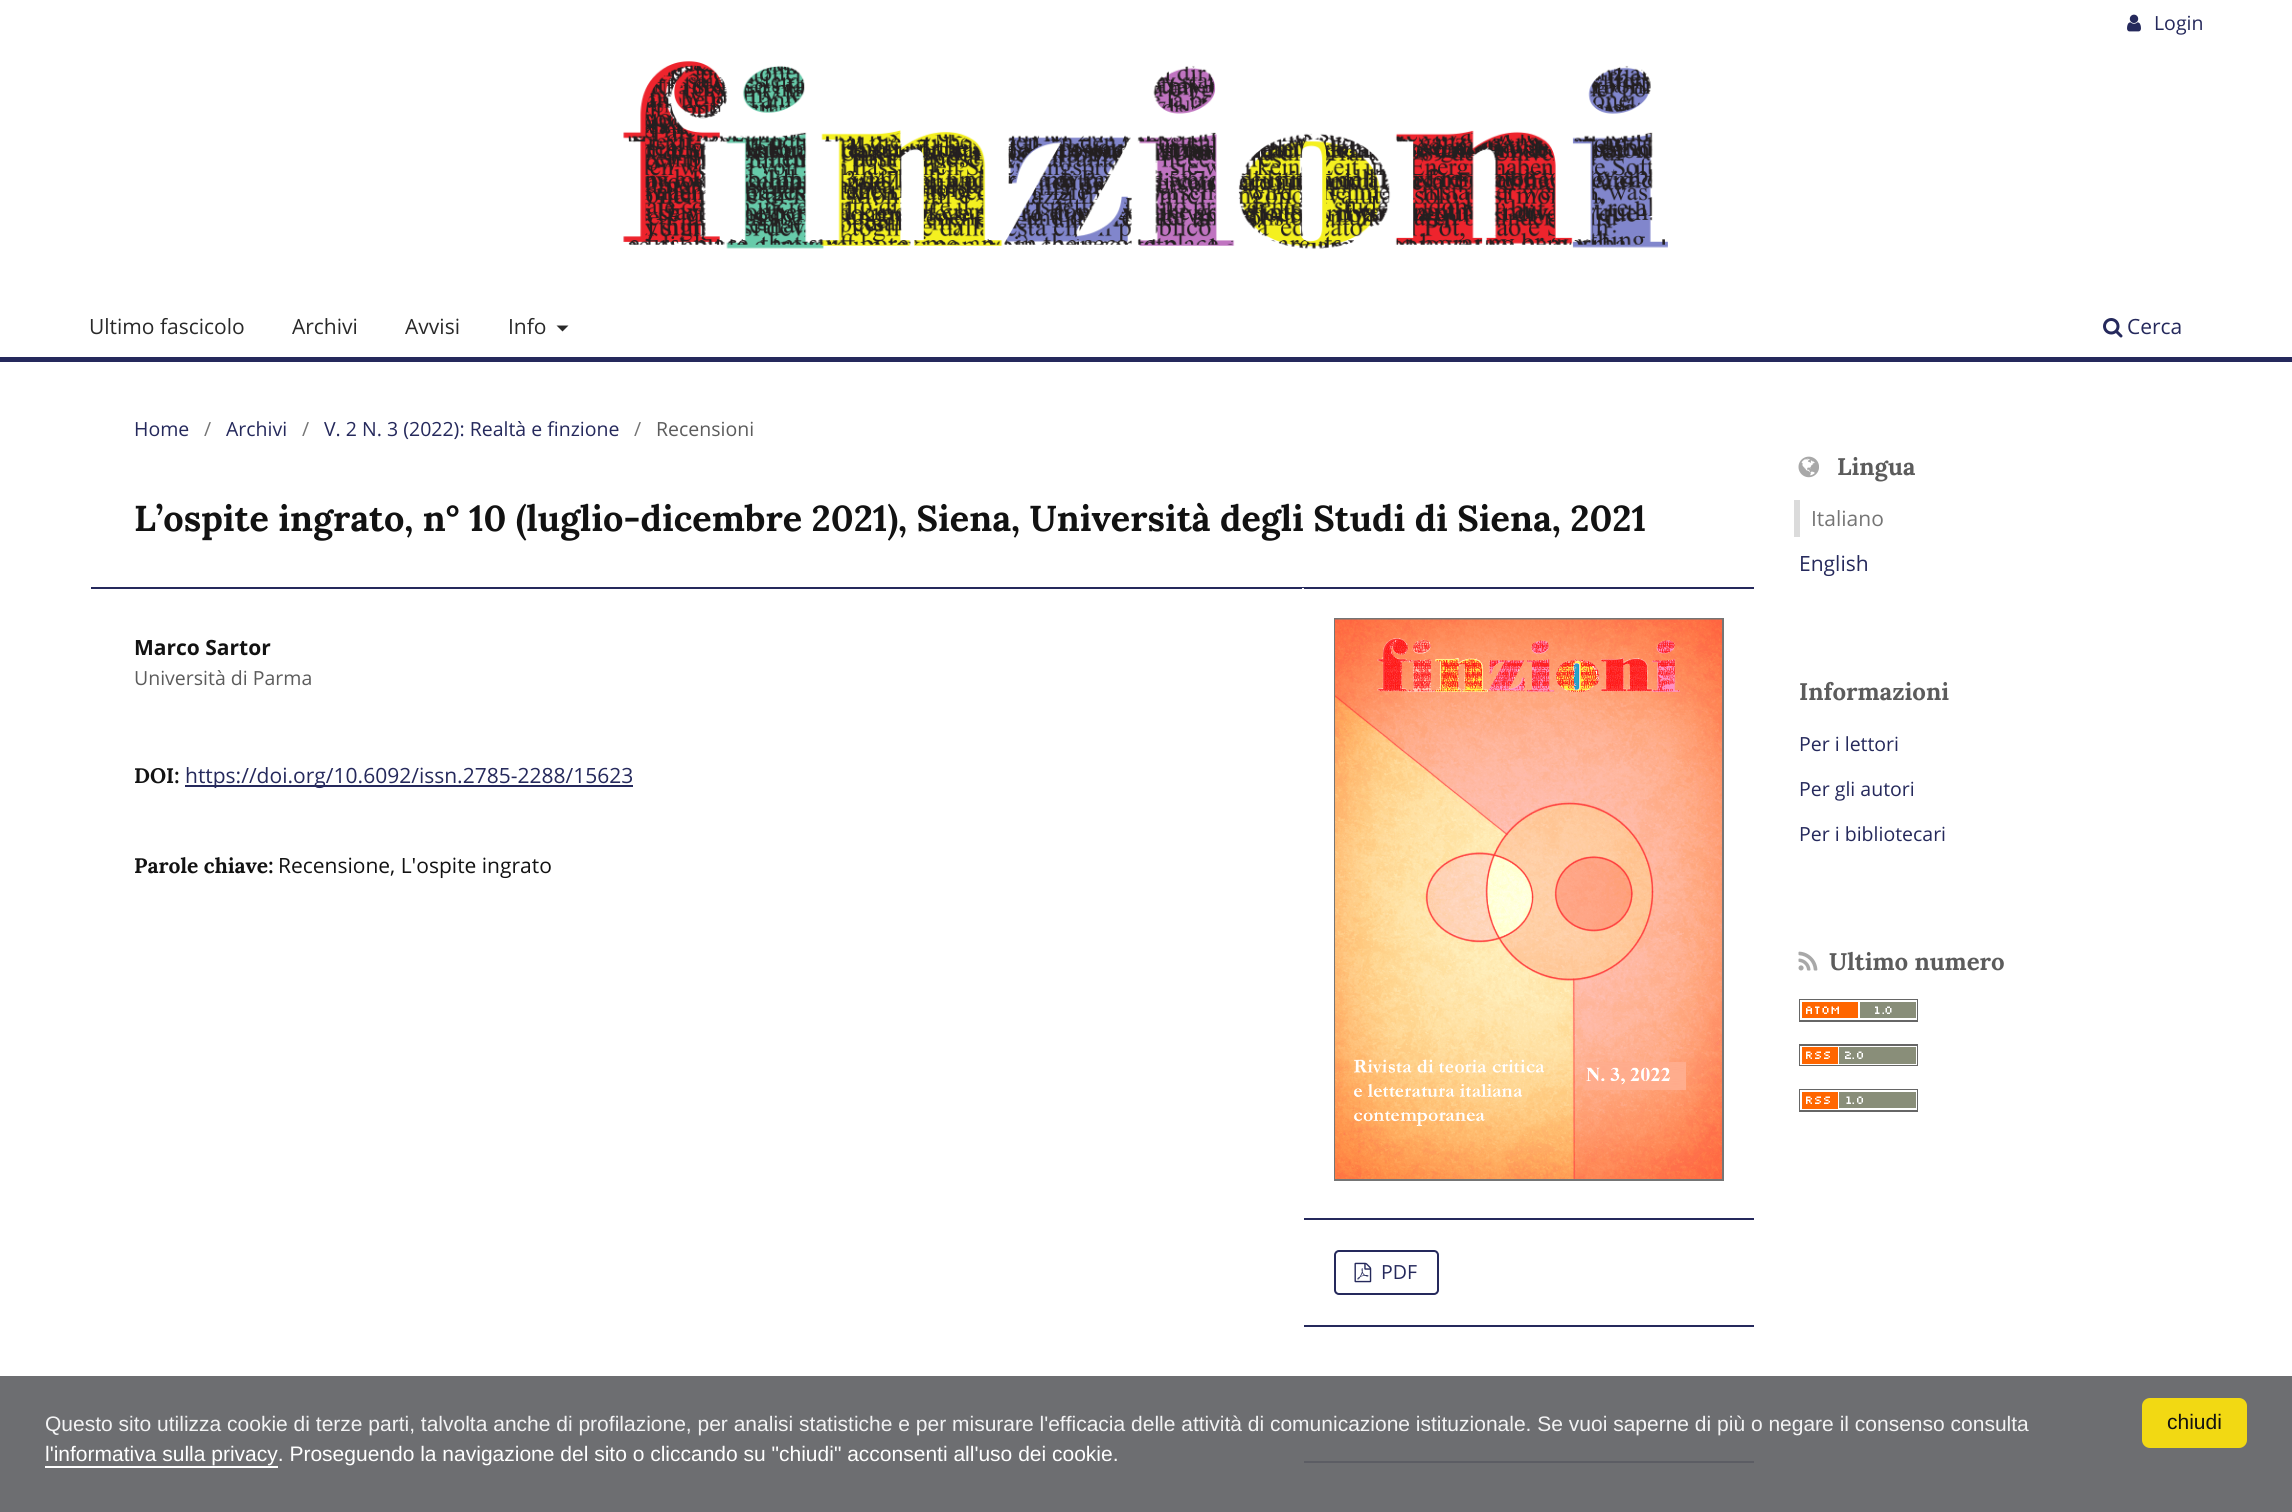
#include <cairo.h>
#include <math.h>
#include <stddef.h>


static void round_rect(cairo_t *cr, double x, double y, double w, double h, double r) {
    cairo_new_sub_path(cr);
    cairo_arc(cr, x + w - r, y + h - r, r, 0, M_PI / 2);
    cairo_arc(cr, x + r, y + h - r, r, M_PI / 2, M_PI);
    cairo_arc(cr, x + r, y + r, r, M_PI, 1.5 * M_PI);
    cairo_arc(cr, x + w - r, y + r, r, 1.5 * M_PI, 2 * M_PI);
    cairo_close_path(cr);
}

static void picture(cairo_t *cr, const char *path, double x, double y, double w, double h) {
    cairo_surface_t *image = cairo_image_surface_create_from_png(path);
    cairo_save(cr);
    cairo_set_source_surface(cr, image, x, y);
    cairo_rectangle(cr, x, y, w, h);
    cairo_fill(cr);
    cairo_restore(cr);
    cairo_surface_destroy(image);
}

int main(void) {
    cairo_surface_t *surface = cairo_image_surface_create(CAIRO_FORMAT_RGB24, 2292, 1512);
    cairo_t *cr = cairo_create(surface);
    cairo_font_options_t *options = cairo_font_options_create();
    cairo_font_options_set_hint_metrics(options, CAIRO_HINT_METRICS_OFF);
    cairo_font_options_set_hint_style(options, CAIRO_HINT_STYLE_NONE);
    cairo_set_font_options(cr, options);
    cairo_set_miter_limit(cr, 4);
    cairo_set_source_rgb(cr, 1, 1, 1);
    cairo_paint(cr);
    cairo_set_source_rgb(cr, 0.145, 0.161, 0.361);
    cairo_rectangle(cr, 0, 357, 2292, 5);
    cairo_fill(cr);
    picture(cr, "img1.png", 2127, 14, 14, 18);
    cairo_select_font_face(cr, "Open Sans", CAIRO_FONT_SLANT_NORMAL, CAIRO_FONT_WEIGHT_NORMAL);
    cairo_set_font_size(cr, 19.5);
    cairo_move_to(cr, 2154, 30);
    cairo_show_text(cr, "Login");
    cairo_set_font_size(cr, 21);
    cairo_set_source_rgb(cr, 0.161, 0.161, 0.161);
    cairo_move_to(cr, 89, 334);
    cairo_show_text(cr, "Ultimo fascicolo");
    cairo_move_to(cr, 292, 334);
    cairo_show_text(cr, "Archivi");
    cairo_move_to(cr, 405, 334);
    cairo_show_text(cr, "Avvisi");
    cairo_move_to(cr, 508, 334);
    cairo_show_text(cr, "Info");
    cairo_new_path(cr);
    cairo_move_to(cr, 556.5, 325.5);
    cairo_line_to(cr, 568.5, 325.5);
    cairo_line_to(cr, 562.5, 331.5);
    cairo_close_path(cr);
    cairo_fill(cr);
    picture(cr, "img2.png", 2103, 318, 20, 20);
    cairo_set_source_rgb(cr, 0.145, 0.161, 0.361);
    cairo_move_to(cr, 2127, 334);
    cairo_show_text(cr, "Cerca");
    picture(cr, "img3.png", 623, 61, 1045, 188);
    cairo_rectangle(cr, 89, 587, 1665, 2);
    cairo_fill(cr);
    cairo_set_source_rgb(cr, 1, 1, 1);
    cairo_rectangle(cr, 89, 587, 2, 2);
    cairo_fill(cr);
    cairo_set_font_size(cr, 19.5);
    cairo_set_source_rgb(cr, 0.145, 0.161, 0.361);
    cairo_move_to(cr, 134, 436);
    cairo_show_text(cr, "Home");
    cairo_set_source_rgb(cr, 0.459, 0.459, 0.459);
    cairo_move_to(cr, 204, 436);
    cairo_show_text(cr, "/");
    cairo_set_source_rgb(cr, 0.145, 0.161, 0.361);
    cairo_move_to(cr, 226, 436);
    cairo_show_text(cr, "Archivi");
    cairo_set_source_rgb(cr, 0.459, 0.459, 0.459);
    cairo_move_to(cr, 302, 436);
    cairo_show_text(cr, "/");
    cairo_set_source_rgb(cr, 0.145, 0.161, 0.361);
    cairo_move_to(cr, 324, 436);
    cairo_show_text(cr, "V. 2 N. 3 (2022): Realtà e finzione");
    cairo_set_source_rgb(cr, 0.459, 0.459, 0.459);
    cairo_move_to(cr, 634, 436);
    cairo_show_text(cr, "/");
    cairo_set_source_rgb(cr, 0.361, 0.361, 0.361);
    cairo_move_to(cr, 656, 436);
    cairo_show_text(cr, "Recensioni");
    cairo_select_font_face(cr, "Lora", CAIRO_FONT_SLANT_NORMAL, CAIRO_FONT_WEIGHT_BOLD);
    cairo_set_font_size(cr, 36);
    cairo_set_source_rgb(cr, 0.071, 0.071, 0.071);
    cairo_move_to(cr, 134, 531);
    cairo_show_text(cr, "L’ospite ingrato, n° 10 (luglio-dicembre 2021), Siena, Università degli Studi di Siena, 2021");
    cairo_set_source_rgb(cr, 1, 1, 1);
    cairo_rectangle(cr, 1302, 588, 2, 1);
    cairo_fill(cr);
    cairo_select_font_face(cr, "Open Sans", CAIRO_FONT_SLANT_NORMAL, CAIRO_FONT_WEIGHT_BOLD);
    cairo_set_font_size(cr, 21);
    cairo_set_source_rgb(cr, 0.071, 0.071, 0.071);
    cairo_move_to(cr, 134, 655);
    cairo_show_text(cr, "Marco Sartor");
    cairo_select_font_face(cr, "Open Sans", CAIRO_FONT_SLANT_NORMAL, CAIRO_FONT_WEIGHT_NORMAL);
    cairo_set_font_size(cr, 19.5);
    cairo_set_source_rgb(cr, 0.361, 0.361, 0.361);
    cairo_move_to(cr, 134, 685);
    cairo_show_text(cr, "Università di Parma");
    cairo_select_font_face(cr, "Lora", CAIRO_FONT_SLANT_NORMAL, CAIRO_FONT_WEIGHT_BOLD);
    cairo_set_font_size(cr, 21);
    cairo_set_source_rgb(cr, 0.071, 0.071, 0.071);
    cairo_move_to(cr, 134, 783);
    cairo_show_text(cr, "DOI:");
    cairo_set_source_rgb(cr, 0.145, 0.161, 0.361);
    cairo_rectangle(cr, 185, 785, 448, 2);
    cairo_fill(cr);
    cairo_select_font_face(cr, "Open Sans", CAIRO_FONT_SLANT_NORMAL, CAIRO_FONT_WEIGHT_NORMAL);
    cairo_move_to(cr, 185, 783);
    cairo_show_text(cr, "https://doi.org/10.6092/issn.2785-2288/15623");
    cairo_select_font_face(cr, "Lora", CAIRO_FONT_SLANT_NORMAL, CAIRO_FONT_WEIGHT_BOLD);
    cairo_set_source_rgb(cr, 0.071, 0.071, 0.071);
    cairo_move_to(cr, 134, 873);
    cairo_show_text(cr, "Parole chiave:");
    cairo_select_font_face(cr, "Open Sans", CAIRO_FONT_SLANT_NORMAL, CAIRO_FONT_WEIGHT_NORMAL);
    cairo_move_to(cr, 278, 873);
    cairo_show_text(cr, "Recensione, L'ospite ingrato");
    cairo_set_source_rgb(cr, 0.145, 0.161, 0.361);
    cairo_rectangle(cr, 1304, 1218, 450, 2);
    cairo_fill(cr);
    cairo_rectangle(cr, 1335, 619, 388, 561);
    cairo_set_source_rgb(cr, 0.459, 0.459, 0.459);
    cairo_stroke(cr);
    picture(cr, "img4.png", 1335, 619, 387, 560);
    cairo_set_source_rgb(cr, 0.145, 0.161, 0.361);
    cairo_rectangle(cr, 1304, 1325, 450, 2);
    cairo_fill(cr);
    round_rect(cr, 1335, 1251, 103, 43, 4);
    cairo_stroke(cr);
    picture(cr, "img5.png", 1354, 1262, 18, 21);
    cairo_set_font_size(cr, 19.5);
    cairo_move_to(cr, 1381, 1279);
    cairo_show_text(cr, "PDF");
    cairo_rectangle(cr, 1304, 1461, 450, 2);
    cairo_fill(cr);
    picture(cr, "img6.png", 1798, 456, 21, 22);
    cairo_select_font_face(cr, "Lora", CAIRO_FONT_SLANT_NORMAL, CAIRO_FONT_WEIGHT_BOLD);
    cairo_set_font_size(cr, 24);
    cairo_set_source_rgb(cr, 0.361, 0.361, 0.361);
    cairo_move_to(cr, 1837, 475);
    cairo_show_text(cr, "Lingua");
    cairo_select_font_face(cr, "Open Sans", CAIRO_FONT_SLANT_NORMAL, CAIRO_FONT_WEIGHT_NORMAL);
    cairo_set_font_size(cr, 21);
    cairo_set_source_rgb(cr, 0.459, 0.459, 0.459);
    cairo_move_to(cr, 1811, 526);
    cairo_show_text(cr, "Italiano");
    cairo_set_source_rgb(cr, 0.859, 0.859, 0.859);
    cairo_rectangle(cr, 1794, 500, 6, 37);
    cairo_fill(cr);
    cairo_set_source_rgb(cr, 0.145, 0.161, 0.361);
    cairo_move_to(cr, 1799, 571);
    cairo_show_text(cr, "English");
    cairo_select_font_face(cr, "Lora", CAIRO_FONT_SLANT_NORMAL, CAIRO_FONT_WEIGHT_BOLD);
    cairo_set_font_size(cr, 24);
    cairo_set_source_rgb(cr, 0.361, 0.361, 0.361);
    cairo_move_to(cr, 1799, 700);
    cairo_show_text(cr, "Informazioni");
    cairo_select_font_face(cr, "Open Sans", CAIRO_FONT_SLANT_NORMAL, CAIRO_FONT_WEIGHT_NORMAL);
    cairo_set_font_size(cr, 19.5);
    cairo_set_source_rgb(cr, 0.145, 0.161, 0.361);
    cairo_move_to(cr, 1799, 751);
    cairo_show_text(cr, "Per i lettori");
    cairo_move_to(cr, 1799, 796);
    cairo_show_text(cr, "Per gli autori");
    cairo_move_to(cr, 1799, 841);
    cairo_show_text(cr, "Per i bibliotecari");
    picture(cr, "img7.png", 1798, 951, 20, 20);
    cairo_select_font_face(cr, "Lora", CAIRO_FONT_SLANT_NORMAL, CAIRO_FONT_WEIGHT_BOLD);
    cairo_set_font_size(cr, 24);
    cairo_set_source_rgb(cr, 0.361, 0.361, 0.361);
    cairo_move_to(cr, 1829, 970);
    cairo_show_text(cr, "Ultimo numero");
    picture(cr, "img8.png", 1799, 999, 119, 23);
    picture(cr, "img9.png", 1799, 1044, 119, 22);
    picture(cr, "img10.png", 1799, 1089, 119, 23);
    cairo_set_source_rgba(cr, 0.38, 0.384, 0.396, 0.92);
    cairo_rectangle(cr, 0, 1376, 2292, 136);
    cairo_fill(cr);
    cairo_select_font_face(cr, "Liberation Sans", CAIRO_FONT_SLANT_NORMAL, CAIRO_FONT_WEIGHT_NORMAL);
    cairo_set_font_size(cr, 21);
    cairo_set_source_rgb(cr, 0.953, 0.953, 0.957);
    cairo_move_to(cr, 45, 1431);
    cairo_show_text(cr, "Questo sito utilizza cookie di terze parti, talvolta anche di profilazione, per analisi statistiche e per misurare l'efficacia delle attività di comunicazione istituzionale. Se vuoi saperne di più o negare il consenso consulta");
    cairo_set_source_rgb(cr, 1, 1, 1);
    cairo_move_to(cr, 45, 1461);
    cairo_show_text(cr, "l'informativa sulla privacy. Proseguendo la navigazione del sito o cliccando su \"chiudi\" acconsenti all'uso dei cookie.");
    cairo_rectangle(cr, 45, 1466, 233, 2);
    cairo_fill(cr);
    cairo_set_source_rgb(cr, 0.949, 0.851, 0.078);
    round_rect(cr, 2142, 1398, 105, 50, 8);
    cairo_fill(cr);
    cairo_set_source_rgb(cr, 0.071, 0.071, 0.071);
    cairo_move_to(cr, 2167, 1429);
    cairo_show_text(cr, "chiudi");
    cairo_surface_write_to_png(surface, "page.png");
    cairo_font_options_destroy(options);
    cairo_destroy(cr);
    cairo_surface_destroy(surface);
    return 0;
}
